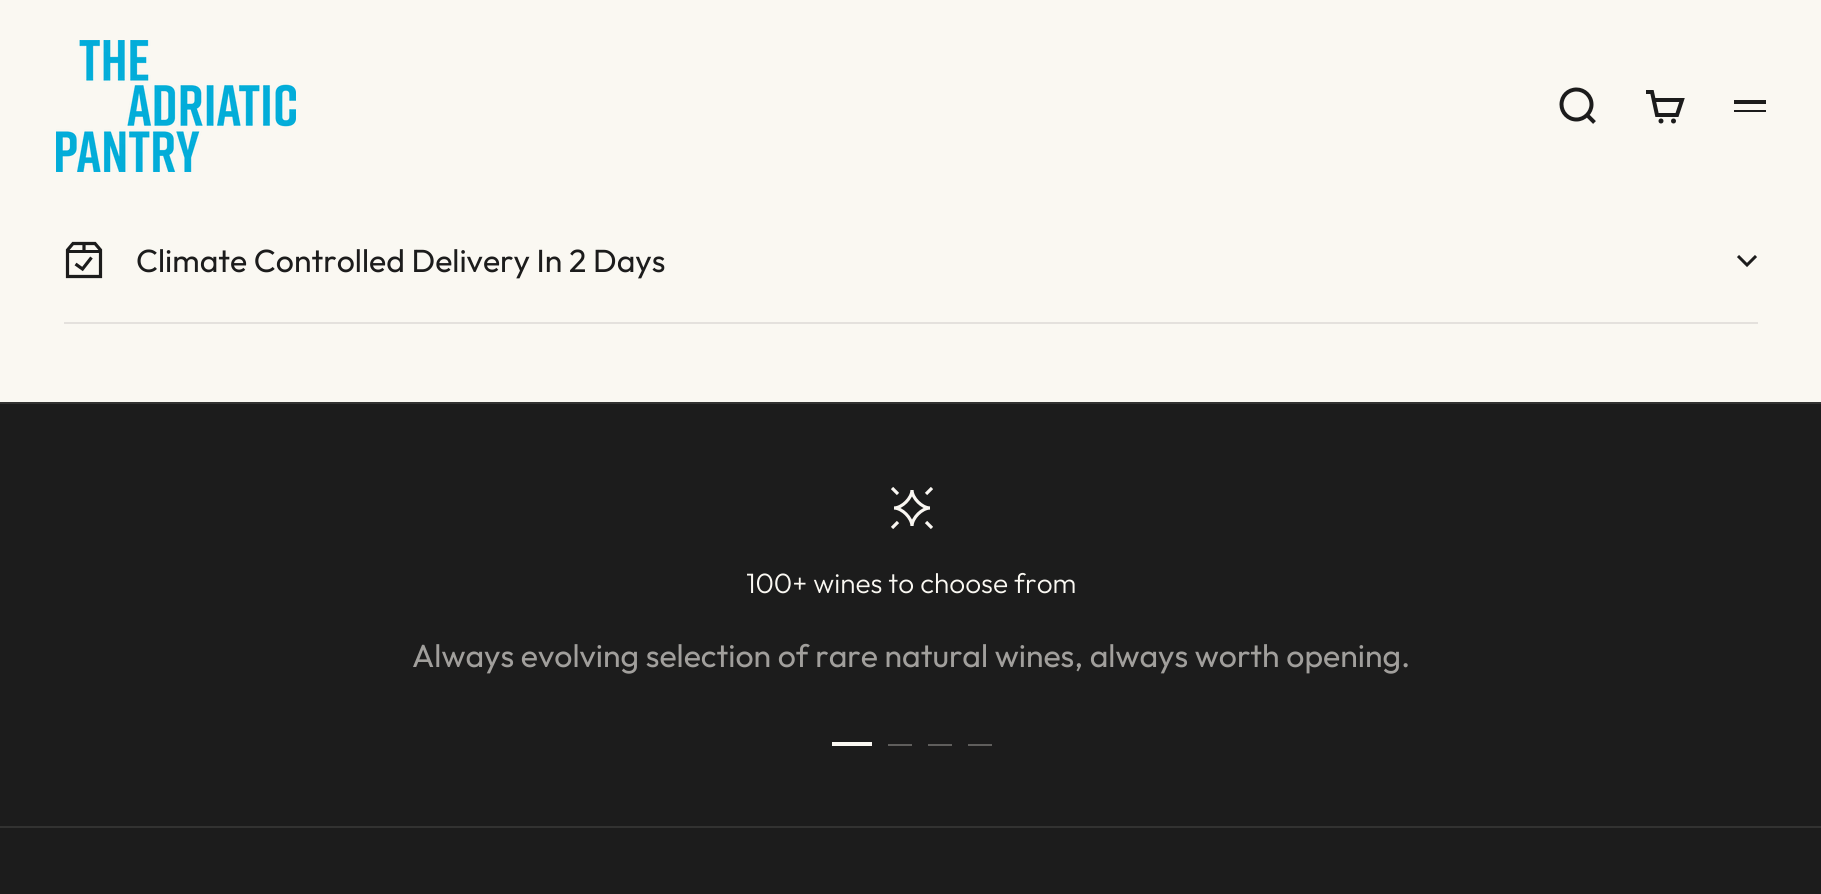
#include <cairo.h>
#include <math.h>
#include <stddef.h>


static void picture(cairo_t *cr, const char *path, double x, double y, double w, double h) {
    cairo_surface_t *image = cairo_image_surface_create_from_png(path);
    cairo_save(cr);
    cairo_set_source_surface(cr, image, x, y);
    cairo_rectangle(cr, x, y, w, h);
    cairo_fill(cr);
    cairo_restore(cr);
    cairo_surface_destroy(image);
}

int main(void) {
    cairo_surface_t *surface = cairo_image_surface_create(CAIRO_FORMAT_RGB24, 1821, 894);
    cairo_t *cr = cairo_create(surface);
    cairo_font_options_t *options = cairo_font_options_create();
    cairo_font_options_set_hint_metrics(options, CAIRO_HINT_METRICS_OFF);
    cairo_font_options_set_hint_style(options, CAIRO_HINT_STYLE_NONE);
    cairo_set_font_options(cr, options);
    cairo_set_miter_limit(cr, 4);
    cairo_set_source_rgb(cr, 0.98, 0.969, 0.949);
    cairo_paint(cr);
    picture(cr, "img1.png", 56, 40, 240, 132);
    cairo_new_path(cr);
    cairo_move_to(cr, 1561.5, 104.5);
    cairo_curve_to(cr, 1561.5, 112.5, 1568, 119.5, 1576.5, 119.5);
    cairo_curve_to(cr, 1584.5, 119.5, 1591.5, 112.5, 1591.5, 104.5);
    cairo_curve_to(cr, 1591.5, 96, 1584.5, 89.5, 1576.5, 89.5);
    cairo_curve_to(cr, 1568, 89.5, 1561.5, 96, 1561.5, 104.5);
    cairo_close_path(cr);
    cairo_move_to(cr, 1587, 115);
    cairo_line_to(cr, 1594.5, 122.5);
    cairo_set_source_rgb(cr, 0.11, 0.11, 0.11);
    cairo_set_line_width(cr, 4);
    cairo_stroke(cr);
    cairo_new_path(cr);
    cairo_move_to(cr, 1646, 92);
    cairo_line_to(cr, 1652, 92);
    cairo_line_to(cr, 1657, 115);
    cairo_line_to(cr, 1677, 115);
    cairo_line_to(cr, 1682, 100);
    cairo_line_to(cr, 1654, 100);
    cairo_stroke(cr);
    cairo_arc(cr, 1661, 121, 2.5, 0, 2 * M_PI);
    cairo_fill(cr);
    cairo_arc(cr, 1673.5, 121, 2.5, 0, 2 * M_PI);
    cairo_fill(cr);
    cairo_rectangle(cr, 1734, 100, 32, 4);
    cairo_fill(cr);
    cairo_rectangle(cr, 1734, 110, 32, 2);
    cairo_fill(cr);
    cairo_set_source_rgb(cr, 0.894, 0.882, 0.867);
    cairo_rectangle(cr, 64, 322, 1694, 2);
    cairo_fill(cr);
    cairo_new_path(cr);
    cairo_move_to(cr, 84, 243.5);
    cairo_line_to(cr, 84, 251.5);
    cairo_move_to(cr, 84, 276.5);
    cairo_line_to(cr, 67.5, 276.5);
    cairo_line_to(cr, 67.5, 250);
    cairo_line_to(cr, 73, 243.5);
    cairo_line_to(cr, 95, 243.5);
    cairo_line_to(cr, 100.5, 250);
    cairo_line_to(cr, 100.5, 276.5);
    cairo_close_path(cr);
    cairo_move_to(cr, 75.5, 264);
    cairo_line_to(cr, 82.5, 269);
    cairo_line_to(cr, 91.5, 257.5);
    cairo_set_source_rgb(cr, 0.11, 0.11, 0.11);
    cairo_set_line_width(cr, 3.2);
    cairo_stroke(cr);
    cairo_rectangle(cr, 68, 250, 33, 3);
    cairo_fill(cr);
    cairo_select_font_face(cr, "Outfit", CAIRO_FONT_SLANT_NORMAL, CAIRO_FONT_WEIGHT_NORMAL);
    cairo_set_font_size(cr, 32);
    cairo_move_to(cr, 136, 272);
    cairo_show_text(cr, "Climate Controlled Delivery In 2 Days");
    cairo_new_path(cr);
    cairo_move_to(cr, 1756, 256);
    cairo_line_to(cr, 1747, 265);
    cairo_line_to(cr, 1738, 256);
    cairo_set_line_width(cr, 3);
    cairo_stroke(cr);
    cairo_rectangle(cr, 0, 404, 1821, 422);
    cairo_fill(cr);
    cairo_set_source_rgb(cr, 0.196, 0.196, 0.192);
    cairo_rectangle(cr, 0, 402, 1821, 2);
    cairo_fill(cr);
    cairo_rectangle(cr, 0, 826, 1821, 2);
    cairo_fill(cr);
    picture(cr, "img2.png", 891, 487, 42, 42);
    cairo_select_font_face(cr, "Outfit Light", CAIRO_FONT_SLANT_NORMAL, CAIRO_FONT_WEIGHT_NORMAL);
    cairo_set_font_size(cr, 28);
    cairo_set_source_rgb(cr, 0.98, 0.969, 0.949);
    cairo_move_to(cr, 746, 593);
    cairo_show_text(cr, "100+ wines to choose from");
    cairo_select_font_face(cr, "Outfit", CAIRO_FONT_SLANT_NORMAL, CAIRO_FONT_WEIGHT_NORMAL);
    cairo_set_font_size(cr, 32);
    cairo_set_source_rgb(cr, 0.631, 0.624, 0.612);
    cairo_move_to(cr, 412, 667);
    cairo_show_text(cr, "Always evolving selection of rare natural wines, always worth opening.");
    cairo_set_source_rgb(cr, 0.98, 0.969, 0.949);
    cairo_rectangle(cr, 832, 742, 40, 4);
    cairo_fill(cr);
    cairo_set_source_rgb(cr, 0.373, 0.369, 0.361);
    cairo_rectangle(cr, 888, 744, 24, 2);
    cairo_fill(cr);
    cairo_rectangle(cr, 928, 744, 24, 2);
    cairo_fill(cr);
    cairo_rectangle(cr, 968, 744, 24, 2);
    cairo_fill(cr);
    cairo_set_source_rgb(cr, 0.11, 0.11, 0.11);
    cairo_rectangle(cr, 0, 828, 1821, 66);
    cairo_fill(cr);
    cairo_surface_write_to_png(surface, "page.png");
    cairo_font_options_destroy(options);
    cairo_destroy(cr);
    cairo_surface_destroy(surface);
    return 0;
}
